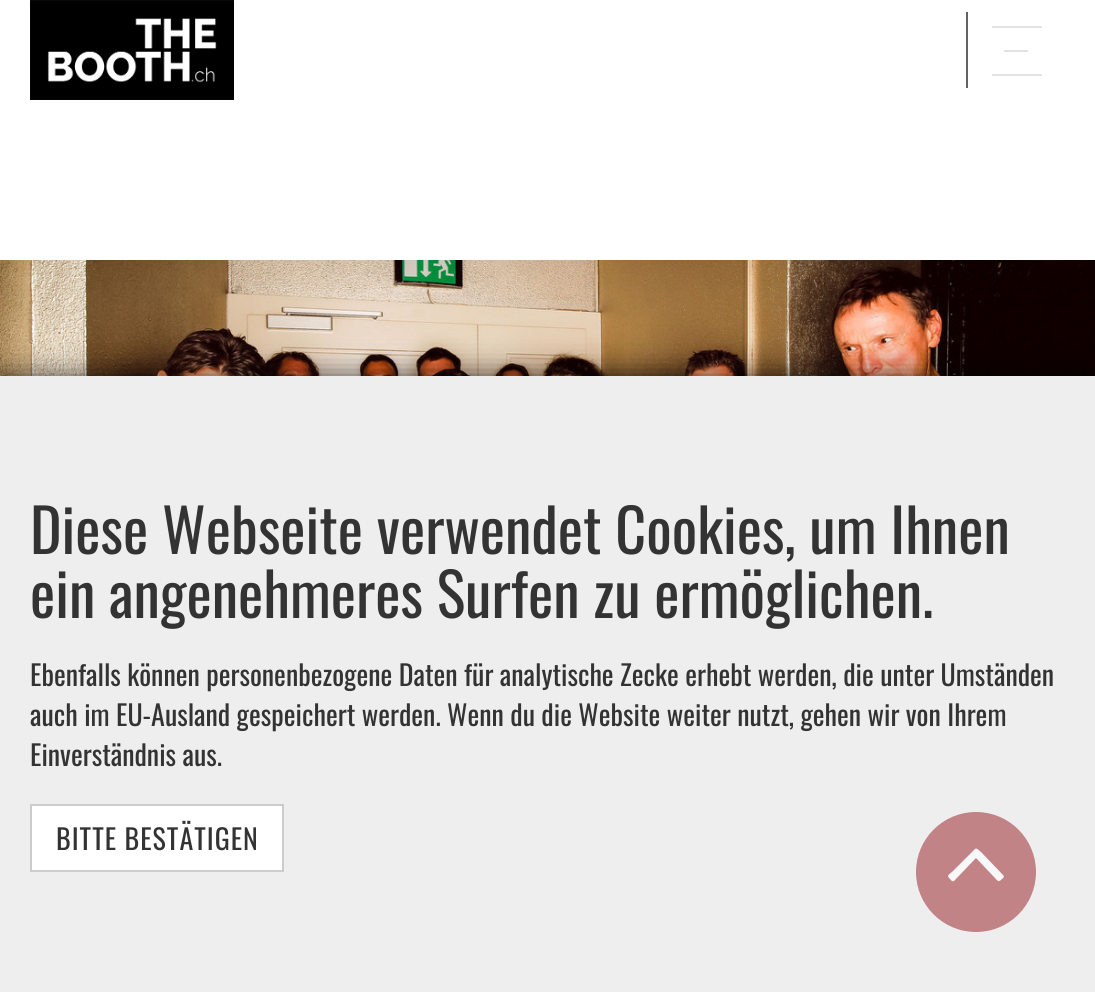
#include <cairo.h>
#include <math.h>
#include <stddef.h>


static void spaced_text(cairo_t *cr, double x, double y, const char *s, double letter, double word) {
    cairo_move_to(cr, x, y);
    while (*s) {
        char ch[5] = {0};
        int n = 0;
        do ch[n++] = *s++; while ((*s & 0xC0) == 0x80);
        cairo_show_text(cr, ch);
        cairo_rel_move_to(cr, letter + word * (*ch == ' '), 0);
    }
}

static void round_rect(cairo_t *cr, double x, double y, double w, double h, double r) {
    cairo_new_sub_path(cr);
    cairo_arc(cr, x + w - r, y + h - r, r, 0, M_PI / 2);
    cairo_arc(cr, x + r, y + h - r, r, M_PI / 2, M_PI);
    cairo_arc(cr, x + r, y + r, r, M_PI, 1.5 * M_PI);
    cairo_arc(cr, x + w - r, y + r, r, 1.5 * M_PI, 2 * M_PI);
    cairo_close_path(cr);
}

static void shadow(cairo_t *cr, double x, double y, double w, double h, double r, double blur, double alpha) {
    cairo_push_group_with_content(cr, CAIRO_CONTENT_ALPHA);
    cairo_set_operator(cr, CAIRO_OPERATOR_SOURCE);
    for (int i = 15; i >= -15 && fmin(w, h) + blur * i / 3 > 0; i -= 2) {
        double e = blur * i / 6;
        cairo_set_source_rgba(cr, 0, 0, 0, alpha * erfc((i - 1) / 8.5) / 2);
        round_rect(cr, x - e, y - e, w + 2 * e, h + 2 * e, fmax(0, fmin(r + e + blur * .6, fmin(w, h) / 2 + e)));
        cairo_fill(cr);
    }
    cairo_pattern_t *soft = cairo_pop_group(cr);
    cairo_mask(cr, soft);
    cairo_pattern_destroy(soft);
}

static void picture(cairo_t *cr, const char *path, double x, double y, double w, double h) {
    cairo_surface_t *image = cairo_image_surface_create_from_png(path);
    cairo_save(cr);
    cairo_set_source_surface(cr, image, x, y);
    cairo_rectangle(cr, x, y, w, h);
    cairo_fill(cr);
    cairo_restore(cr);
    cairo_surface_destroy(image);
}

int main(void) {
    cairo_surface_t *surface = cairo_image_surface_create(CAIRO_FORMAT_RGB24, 1095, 992);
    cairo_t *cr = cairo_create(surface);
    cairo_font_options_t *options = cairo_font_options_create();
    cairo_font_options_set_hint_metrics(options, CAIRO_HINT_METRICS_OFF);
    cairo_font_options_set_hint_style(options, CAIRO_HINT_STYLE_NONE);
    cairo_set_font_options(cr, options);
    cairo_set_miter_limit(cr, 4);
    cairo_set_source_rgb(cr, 1, 1, 1);
    cairo_paint(cr);
    picture(cr, "img1.png", 30, 0, 204, 100);
    cairo_set_source_rgb(cr, 0.388, 0.388, 0.388);
    cairo_rectangle(cr, 966, 12, 2, 76);
    cairo_fill(cr);
    cairo_set_source_rgb(cr, 0.886, 0.886, 0.886);
    cairo_rectangle(cr, 992, 26, 50, 2);
    cairo_fill(cr);
    cairo_rectangle(cr, 992, 74, 50, 2);
    cairo_fill(cr);
    cairo_rectangle(cr, 1004, 50, 24, 2);
    cairo_fill(cr);
    picture(cr, "img2.png", 0, 260, 1095, 116);
    cairo_set_source_rgb(cr, 0, 0, 0);
    shadow(cr, 0, 376, 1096, 616, 0, 15, 0.7);
    cairo_set_source_rgb(cr, 0.933, 0.933, 0.933);
    cairo_rectangle(cr, 0, 376, 1095, 616);
    cairo_fill(cr);
    cairo_select_font_face(cr, "Oswald", CAIRO_FONT_SLANT_NORMAL, CAIRO_FONT_WEIGHT_NORMAL);
    cairo_set_font_size(cr, 60);
    cairo_set_source_rgb(cr, 0.2, 0.2, 0.2);
    cairo_move_to(cr, 30, 554);
    cairo_show_text(cr, "Diese Webseite verwendet Cookies, um Ihnen");
    cairo_move_to(cr, 30, 618);
    cairo_show_text(cr, "ein angenehmeres Surfen zu ermöglichen.");
    cairo_set_font_size(cr, 28);
    cairo_move_to(cr, 30, 686);
    cairo_show_text(cr, "Ebenfalls können personenbezogene Daten für analytische Zecke erhebt werden, die unter Umständen");
    cairo_move_to(cr, 30, 726);
    cairo_show_text(cr, "auch im EU-Ausland gespeichert werden. Wenn du die Website weiter nutzt, gehen wir von Ihrem");
    cairo_move_to(cr, 30, 766);
    cairo_show_text(cr, "Einverständnis aus.");
    cairo_set_source_rgb(cr, 1, 1, 1);
    cairo_rectangle(cr, 31, 805, 252, 66);
    cairo_fill_preserve(cr);
    cairo_set_source_rgb(cr, 0.8, 0.8, 0.8);
    cairo_stroke(cr);
    cairo_set_source_rgb(cr, 0.2, 0.2, 0.2);
    spaced_text(cr, 56, 850, "BITTE BESTÄTIGEN", 1, 0);
    cairo_set_source_rgb(cr, 0.757, 0.514, 0.522);
    cairo_new_path(cr);
    cairo_arc(cr, 976, 872, 60, 0, 2 * M_PI);
    cairo_fill(cr);
    cairo_set_source_rgb(cr, 0.969, 0.969, 0.969);
    cairo_new_path(cr);
    cairo_move_to(cr, 1003, 875);
    cairo_curve_to(cr, 1005, 877, 1003, 878, 1002, 879);
    cairo_curve_to(cr, 998, 883, 998, 881, 994, 877);
    cairo_line_to(cr, 976, 858);
    cairo_line_to(cr, 954, 881);
    cairo_curve_to(cr, 952, 882, 951, 880, 950, 879);
    cairo_curve_to(cr, 946, 875, 949, 875, 953, 871);
    cairo_line_to(cr, 971, 853);
    cairo_curve_to(cr, 977, 847, 975, 847, 982, 853);
    cairo_close_path(cr);
    cairo_fill(cr);
    cairo_surface_write_to_png(surface, "page.png");
    cairo_font_options_destroy(options);
    cairo_destroy(cr);
    cairo_surface_destroy(surface);
    return 0;
}
